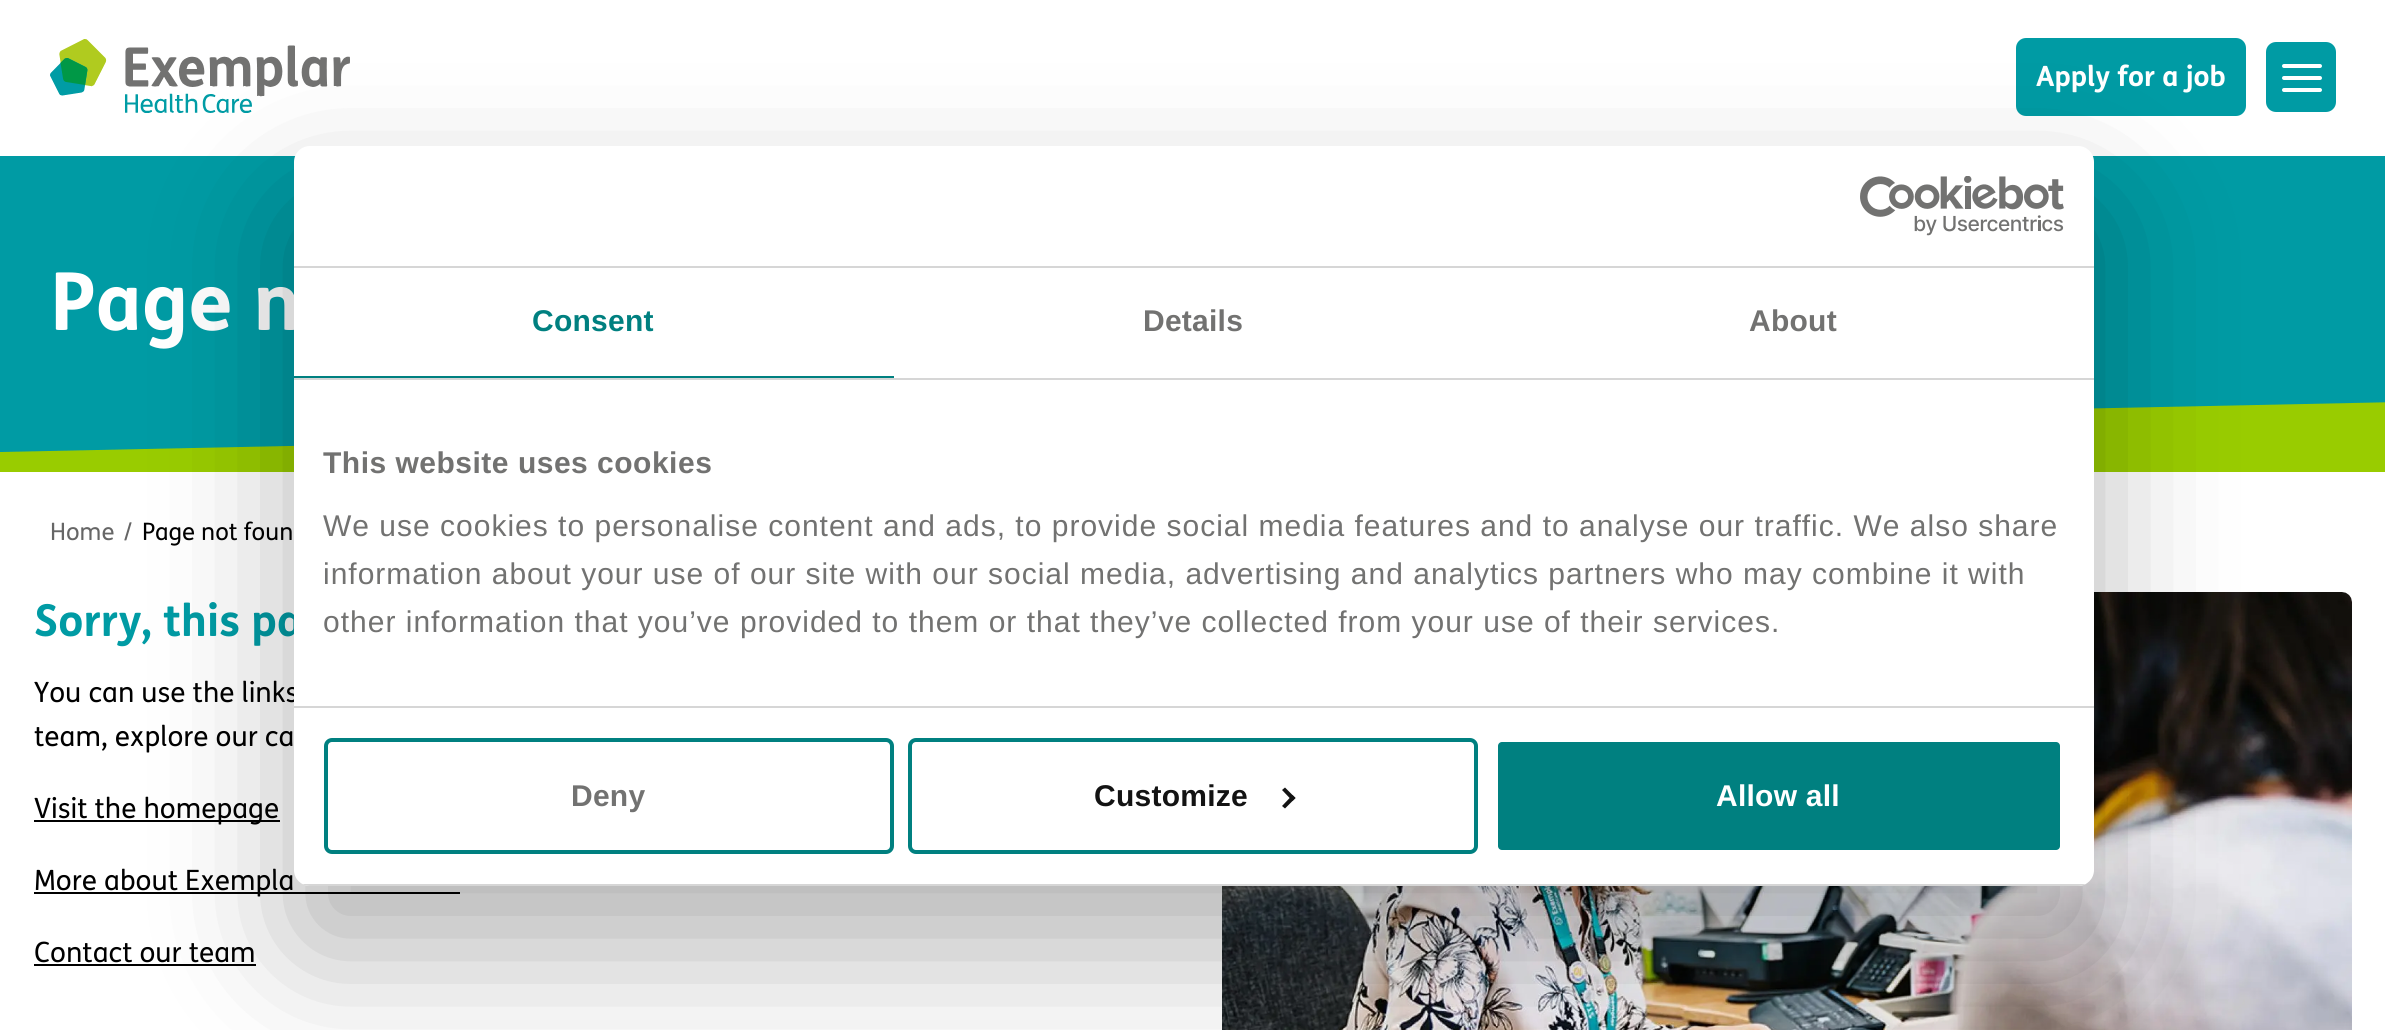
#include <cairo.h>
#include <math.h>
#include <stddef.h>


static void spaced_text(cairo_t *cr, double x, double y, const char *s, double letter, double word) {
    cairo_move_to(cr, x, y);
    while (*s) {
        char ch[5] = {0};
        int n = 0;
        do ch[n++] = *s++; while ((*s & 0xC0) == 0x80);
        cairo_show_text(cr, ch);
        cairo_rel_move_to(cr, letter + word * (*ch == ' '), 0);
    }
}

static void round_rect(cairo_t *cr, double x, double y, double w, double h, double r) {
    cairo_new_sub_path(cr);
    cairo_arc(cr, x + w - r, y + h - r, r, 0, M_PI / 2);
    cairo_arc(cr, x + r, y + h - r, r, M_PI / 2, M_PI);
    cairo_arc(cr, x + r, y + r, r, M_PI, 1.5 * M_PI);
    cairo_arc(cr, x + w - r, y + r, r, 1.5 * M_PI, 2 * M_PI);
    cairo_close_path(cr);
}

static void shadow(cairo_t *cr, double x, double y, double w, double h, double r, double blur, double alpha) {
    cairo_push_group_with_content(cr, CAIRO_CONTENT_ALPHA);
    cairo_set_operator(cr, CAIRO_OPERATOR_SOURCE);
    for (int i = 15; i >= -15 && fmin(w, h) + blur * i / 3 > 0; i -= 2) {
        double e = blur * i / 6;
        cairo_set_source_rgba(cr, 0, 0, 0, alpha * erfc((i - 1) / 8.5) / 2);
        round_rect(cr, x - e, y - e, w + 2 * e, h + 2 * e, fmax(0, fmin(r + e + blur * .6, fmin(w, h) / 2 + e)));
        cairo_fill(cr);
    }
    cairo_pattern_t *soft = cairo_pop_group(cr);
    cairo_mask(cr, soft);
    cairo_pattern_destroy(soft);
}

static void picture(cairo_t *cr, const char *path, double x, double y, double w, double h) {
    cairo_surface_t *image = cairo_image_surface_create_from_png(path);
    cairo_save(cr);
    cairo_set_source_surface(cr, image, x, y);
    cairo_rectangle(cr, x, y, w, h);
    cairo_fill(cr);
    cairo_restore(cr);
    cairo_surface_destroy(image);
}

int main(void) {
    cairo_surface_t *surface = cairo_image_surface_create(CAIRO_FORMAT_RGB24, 2385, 1030);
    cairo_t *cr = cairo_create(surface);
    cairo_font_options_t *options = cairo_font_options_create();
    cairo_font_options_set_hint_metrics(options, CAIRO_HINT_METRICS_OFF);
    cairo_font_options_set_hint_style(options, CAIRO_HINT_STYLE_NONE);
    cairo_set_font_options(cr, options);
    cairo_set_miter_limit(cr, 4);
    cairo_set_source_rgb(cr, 1, 1, 1);
    cairo_paint(cr);
    picture(cr, "img1.png", 50, 39, 300, 74);
    cairo_set_source_rgb(cr, 0, 0.608, 0.643);
    round_rect(cr, 2016, 38, 230, 78, 10);
    cairo_fill(cr);
    cairo_select_font_face(cr, "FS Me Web", CAIRO_FONT_SLANT_NORMAL, CAIRO_FONT_WEIGHT_BOLD);
    cairo_set_font_size(cr, 28);
    cairo_set_source_rgb(cr, 1, 1, 1);
    cairo_move_to(cr, 2036, 86);
    cairo_show_text(cr, "Apply for a job");
    cairo_set_source_rgb(cr, 0, 0.608, 0.643);
    round_rect(cr, 2266, 42, 70, 70, 10);
    cairo_fill(cr);
    cairo_set_source_rgb(cr, 1, 1, 1);
    round_rect(cr, 2282, 64, 40, 4, 2);
    cairo_fill(cr);
    round_rect(cr, 2282, 76, 40, 4, 2);
    cairo_fill(cr);
    round_rect(cr, 2282, 88, 40, 4, 2);
    cairo_fill(cr);
    cairo_set_source_rgb(cr, 0, 0.608, 0.643);
    cairo_rectangle(cr, 0, 156, 2385, 296);
    cairo_fill(cr);
    cairo_set_font_size(cr, 80);
    cairo_set_source_rgb(cr, 1, 1, 1);
    cairo_move_to(cr, 50, 330);
    cairo_show_text(cr, "Page n");
    cairo_set_source_rgb(cr, 0.6, 0.8, 0);
    cairo_set_fill_rule(cr, CAIRO_FILL_RULE_EVEN_ODD);
    cairo_new_path(cr);
    cairo_move_to(cr, 0, 452);
    cairo_line_to(cr, 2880, 392);
    cairo_line_to(cr, 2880, 472);
    cairo_line_to(cr, 0, 472);
    cairo_close_path(cr);
    cairo_fill(cr);
    cairo_select_font_face(cr, "FS Me Web", CAIRO_FONT_SLANT_NORMAL, CAIRO_FONT_WEIGHT_NORMAL);
    cairo_set_font_size(cr, 24);
    cairo_set_source_rgb(cr, 0.4, 0.4, 0.4);
    cairo_move_to(cr, 50, 540);
    cairo_show_text(cr, "Home");
    cairo_move_to(cr, 124, 540);
    cairo_show_text(cr, "/");
    cairo_set_source_rgb(cr, 0, 0, 0);
    cairo_move_to(cr, 142, 540);
    cairo_show_text(cr, "Page not foun");
    cairo_select_font_face(cr, "FS Me Web", CAIRO_FONT_SLANT_NORMAL, CAIRO_FONT_WEIGHT_BOLD);
    cairo_set_font_size(cr, 44);
    cairo_set_source_rgb(cr, 0, 0.608, 0.643);
    cairo_move_to(cr, 34, 636);
    cairo_show_text(cr, "Sorry, this pa");
    cairo_select_font_face(cr, "FS Me Web", CAIRO_FONT_SLANT_NORMAL, CAIRO_FONT_WEIGHT_NORMAL);
    cairo_set_font_size(cr, 28);
    cairo_set_source_rgb(cr, 0, 0, 0);
    cairo_move_to(cr, 34, 702);
    cairo_show_text(cr, "You can use the links");
    cairo_move_to(cr, 34, 746);
    cairo_show_text(cr, "team, explore our ca");
    cairo_rectangle(cr, 34, 820, 246, 2);
    cairo_fill(cr);
    cairo_move_to(cr, 34, 818);
    cairo_show_text(cr, "Visit the homepage");
    cairo_rectangle(cr, 34, 892, 426, 2);
    cairo_fill(cr);
    cairo_move_to(cr, 34, 890);
    cairo_show_text(cr, "More about Exempla");
    cairo_move_to(cr, 34, 962);
    cairo_show_text(cr, "Contact our team");
    cairo_rectangle(cr, 34, 964, 222, 2);
    cairo_fill(cr);
    picture(cr, "img2.png", 1222, 592, 1130, 438);
    cairo_set_source_rgb(cr, 0, 0, 0);
    shadow(cr, 294, 210, 1800, 740, 16, 68, 0.3);
    cairo_set_source_rgb(cr, 1, 1, 1);
    round_rect(cr, 294, 146, 1800, 740, 16);
    cairo_fill(cr);
    cairo_set_source_rgb(cr, 0.839, 0.839, 0.839);
    cairo_rectangle(cr, 294, 266, 1800, 2);
    cairo_fill(cr);
    picture(cr, "img3.png", 1860, 176, 204, 60);
    cairo_rectangle(cr, 294, 378, 1800, 2);
    cairo_fill(cr);
    cairo_set_source_rgb(cr, 0, 0.502, 0.502);
    cairo_rectangle(cr, 294, 376, 600, 2);
    cairo_fill(cr);
    cairo_select_font_face(cr, "Liberation Sans", CAIRO_FONT_SLANT_NORMAL, CAIRO_FONT_WEIGHT_BOLD);
    cairo_set_font_size(cr, 30);
    spaced_text(cr, 532, 331, "Consent", 0.25, 0);
    cairo_set_source_rgb(cr, 0.447, 0.447, 0.443);
    spaced_text(cr, 1143, 331, "Details", 0.25, 0);
    spaced_text(cr, 1749, 331, "About", 0.25, 0);
    cairo_set_source_rgb(cr, 0.839, 0.839, 0.839);
    cairo_rectangle(cr, 294, 706, 1800, 2);
    cairo_fill(cr);
    cairo_set_source_rgb(cr, 0.447, 0.447, 0.443);
    spaced_text(cr, 323, 473, "This website uses cookies", 0.5, 0);
    cairo_select_font_face(cr, "Liberation Sans", CAIRO_FONT_SLANT_NORMAL, CAIRO_FONT_WEIGHT_NORMAL);
    spaced_text(cr, 323, 536, "We use cookies to personalise content and ads, to provide social media features and to analyse our traffic. We also share", 1, 0);
    spaced_text(cr, 323, 584, "information about your use of our site with our social media, advertising and analytics partners who may combine it with", 1, 0);
    spaced_text(cr, 323, 632, "other information that you’ve provided to them or that they’ve collected from your use of their services.", 1, 0);
    cairo_save(cr);
    cairo_set_fill_rule(cr, CAIRO_FILL_RULE_WINDING);
    round_rect(cr, 294, 146, 1800, 740, 16);
    cairo_clip(cr);
    cairo_set_source_rgb(cr, 0.839, 0.839, 0.839);
    cairo_rectangle(cr, 294, 884, 1800, 2);
    cairo_fill(cr);
    cairo_restore(cr);
    round_rect(cr, 326, 740, 566, 112, 6);
    cairo_set_source_rgb(cr, 0, 0.502, 0.502);
    cairo_set_line_width(cr, 4);
    cairo_stroke(cr);
    cairo_select_font_face(cr, "Liberation Sans", CAIRO_FONT_SLANT_NORMAL, CAIRO_FONT_WEIGHT_BOLD);
    cairo_set_source_rgb(cr, 0.447, 0.447, 0.443);
    spaced_text(cr, 571, 806, "Deny", 0.25, 0);
    round_rect(cr, 910, 740, 566, 112, 6);
    cairo_set_source_rgb(cr, 0, 0.502, 0.502);
    cairo_stroke(cr);
    cairo_set_source_rgb(cr, 0.078, 0.078, 0.078);
    spaced_text(cr, 1094, 806, "Customize", 0.25, 0);
    cairo_set_fill_rule(cr, CAIRO_FILL_RULE_WINDING);
    cairo_new_path(cr);
    cairo_move_to(cr, 1285, 787.5);
    cairo_line_to(cr, 1295.5, 798);
    cairo_line_to(cr, 1292.5, 801);
    cairo_line_to(cr, 1282, 790);
    cairo_close_path(cr);
    cairo_fill(cr);
    cairo_new_path(cr);
    cairo_move_to(cr, 1292.5, 795);
    cairo_line_to(cr, 1295.5, 798);
    cairo_line_to(cr, 1285, 808.5);
    cairo_line_to(cr, 1282, 806);
    cairo_close_path(cr);
    cairo_fill(cr);
    cairo_set_source_rgb(cr, 0, 0.502, 0.502);
    round_rect(cr, 1496, 740, 566, 112, 6);
    cairo_fill_preserve(cr);
    cairo_set_source_rgb(cr, 1, 1, 1);
    cairo_stroke(cr);
    spaced_text(cr, 1716, 806, "Allow all", 0.25, 0);
    cairo_surface_write_to_png(surface, "page.png");
    cairo_font_options_destroy(options);
    cairo_destroy(cr);
    cairo_surface_destroy(surface);
    return 0;
}
